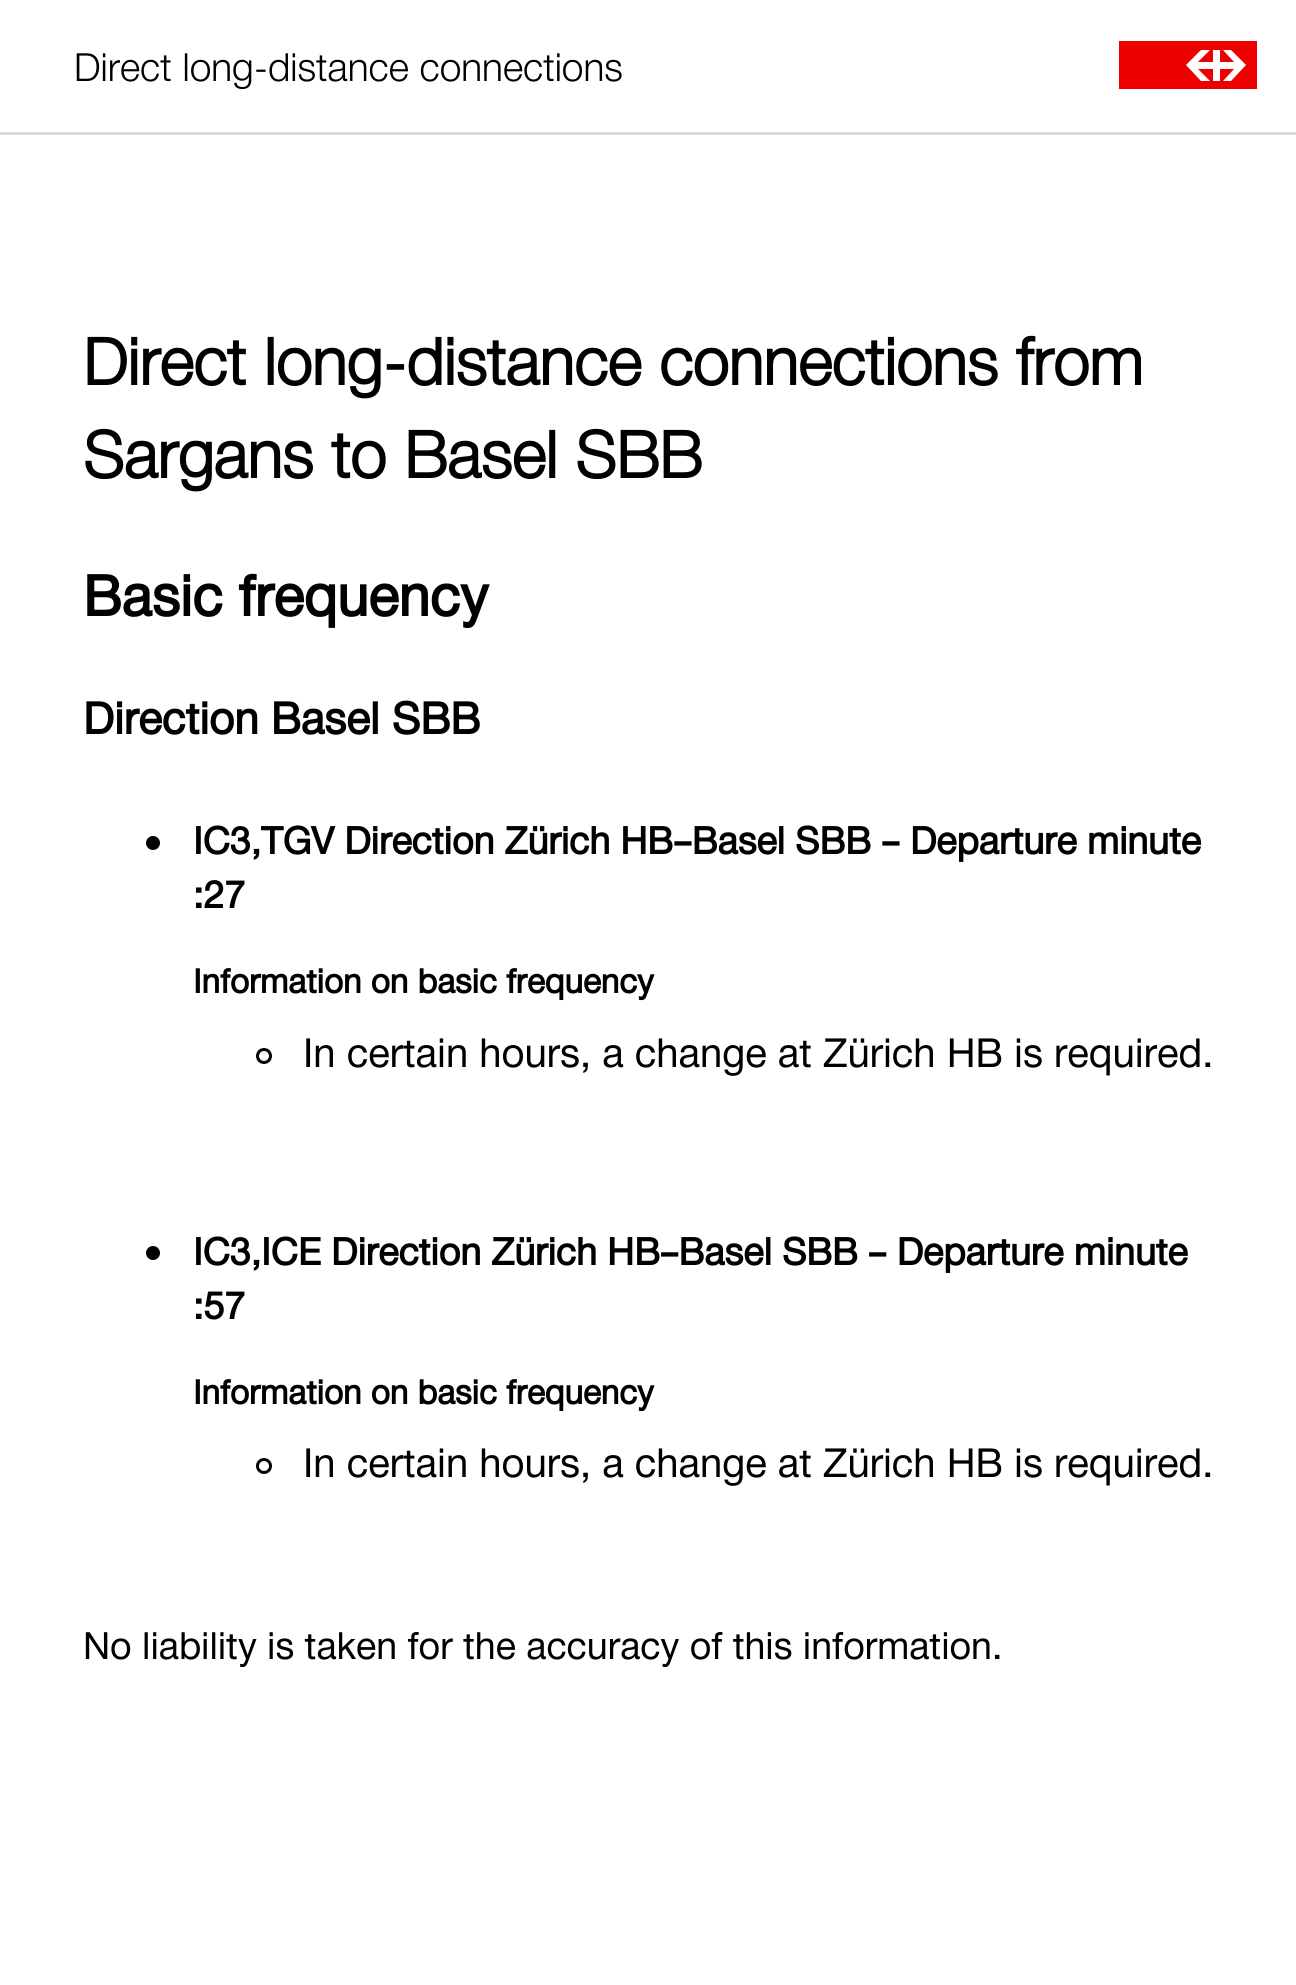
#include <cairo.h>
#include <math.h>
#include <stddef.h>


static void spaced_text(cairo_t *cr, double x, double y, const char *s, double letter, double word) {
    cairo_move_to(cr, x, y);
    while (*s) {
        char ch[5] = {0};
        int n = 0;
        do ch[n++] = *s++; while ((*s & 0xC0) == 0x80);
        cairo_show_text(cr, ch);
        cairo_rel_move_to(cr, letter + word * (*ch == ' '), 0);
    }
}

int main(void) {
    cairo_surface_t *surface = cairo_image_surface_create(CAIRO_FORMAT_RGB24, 1296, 1985);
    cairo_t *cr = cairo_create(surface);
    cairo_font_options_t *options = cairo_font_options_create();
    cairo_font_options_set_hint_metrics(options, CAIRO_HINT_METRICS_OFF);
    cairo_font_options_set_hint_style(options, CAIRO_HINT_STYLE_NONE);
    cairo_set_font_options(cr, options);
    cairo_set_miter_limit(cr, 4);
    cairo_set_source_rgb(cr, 1, 1, 1);
    cairo_paint(cr);
    cairo_set_source_rgb(cr, 0.851, 0.851, 0.851);
    cairo_rectangle(cr, 0, 132, 1296, 3);
    cairo_fill(cr);
    cairo_select_font_face(cr, "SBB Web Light", CAIRO_FONT_SLANT_NORMAL, CAIRO_FONT_WEIGHT_NORMAL);
    cairo_set_font_size(cr, 39.6);
    cairo_set_source_rgb(cr, 0, 0, 0);
    cairo_move_to(cr, 74, 81);
    cairo_show_text(cr, "Direct long-distance connections");
    cairo_set_source_rgb(cr, 0.925, 0, 0);
    cairo_rectangle(cr, 1119, 41, 138, 48);
    cairo_fill(cr);
    cairo_set_source_rgb(cr, 1, 1, 1);
    cairo_new_path(cr);
    cairo_move_to(cr, 1201, 81);
    cairo_line_to(cr, 1210, 81);
    cairo_line_to(cr, 1198, 69);
    cairo_line_to(cr, 1213, 69);
    cairo_line_to(cr, 1213, 81);
    cairo_line_to(cr, 1220, 81);
    cairo_line_to(cr, 1220, 69);
    cairo_line_to(cr, 1234, 69);
    cairo_line_to(cr, 1223, 81);
    cairo_line_to(cr, 1231, 81);
    cairo_line_to(cr, 1246, 65);
    cairo_line_to(cr, 1231, 50);
    cairo_line_to(cr, 1223, 50);
    cairo_line_to(cr, 1234, 62);
    cairo_line_to(cr, 1220, 62);
    cairo_line_to(cr, 1220, 50);
    cairo_line_to(cr, 1213, 50);
    cairo_line_to(cr, 1213, 62);
    cairo_line_to(cr, 1198, 62);
    cairo_line_to(cr, 1210, 50);
    cairo_line_to(cr, 1201, 50);
    cairo_line_to(cr, 1186, 65);
    cairo_line_to(cr, 1201, 81);
    cairo_fill(cr);
    cairo_select_font_face(cr, "SBB Web", CAIRO_FONT_SLANT_NORMAL, CAIRO_FONT_WEIGHT_BOLD);
    cairo_set_font_size(cr, 66);
    cairo_set_source_rgb(cr, 0, 0, 0);
    cairo_move_to(cr, 83, 385);
    cairo_show_text(cr, "Direct long-distance connections from");
    cairo_move_to(cr, 83, 478);
    cairo_show_text(cr, "Sargans to Basel SBB");
    cairo_select_font_face(cr, "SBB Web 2", CAIRO_FONT_SLANT_NORMAL, CAIRO_FONT_WEIGHT_BOLD);
    cairo_set_font_size(cr, 58);
    cairo_move_to(cr, 83, 616);
    cairo_show_text(cr, "Basic frequency");
    cairo_set_font_size(cr, 45.25);
    cairo_move_to(cr, 83, 734);
    cairo_show_text(cr, "Direction Basel SBB");
    cairo_new_path(cr);
    cairo_arc(cr, 153, 843, 7, 0, 2 * M_PI);
    cairo_fill(cr);
    cairo_set_font_size(cr, 38.7);
    spaced_text(cr, 193, 854, "IC3,TGV Direction Zürich HB–Basel SBB – Departure minute", 0, -0.25);
    cairo_move_to(cr, 193, 908);
    cairo_show_text(cr, ":27");
    cairo_set_font_size(cr, 34.25);
    cairo_move_to(cr, 193, 993);
    cairo_show_text(cr, "Information on basic frequency");
    cairo_new_path(cr);
    cairo_arc(cr, 264, 1056, 6.5, 0, 2 * M_PI);
    cairo_set_line_width(cr, 3);
    cairo_stroke(cr);
    cairo_select_font_face(cr, "SBB Web", CAIRO_FONT_SLANT_NORMAL, CAIRO_FONT_WEIGHT_NORMAL);
    cairo_set_font_size(cr, 41.25);
    cairo_move_to(cr, 303, 1067);
    cairo_show_text(cr, "In certain hours, a change at Zürich HB is required.");
    cairo_new_path(cr);
    cairo_arc(cr, 153, 1253, 7, 0, 2 * M_PI);
    cairo_fill(cr);
    cairo_select_font_face(cr, "SBB Web 2", CAIRO_FONT_SLANT_NORMAL, CAIRO_FONT_WEIGHT_BOLD);
    cairo_set_font_size(cr, 38.7);
    spaced_text(cr, 193, 1265, "IC3,ICE Direction Zürich HB–Basel SBB – Departure minute", 0, -0.25);
    cairo_move_to(cr, 193, 1319);
    cairo_show_text(cr, ":57");
    cairo_set_font_size(cr, 34.25);
    cairo_move_to(cr, 193, 1404);
    cairo_show_text(cr, "Information on basic frequency");
    cairo_new_path(cr);
    cairo_arc(cr, 264, 1466, 6.5, 0, 2 * M_PI);
    cairo_stroke(cr);
    cairo_select_font_face(cr, "SBB Web", CAIRO_FONT_SLANT_NORMAL, CAIRO_FONT_WEIGHT_NORMAL);
    cairo_set_font_size(cr, 41.25);
    cairo_move_to(cr, 303, 1477);
    cairo_show_text(cr, "In certain hours, a change at Zürich HB is required.");
    cairo_set_font_size(cr, 38.7);
    cairo_move_to(cr, 83, 1659);
    cairo_show_text(cr, "No liability is taken for the accuracy of this information.");
    cairo_surface_write_to_png(surface, "page.png");
    cairo_font_options_destroy(options);
    cairo_destroy(cr);
    cairo_surface_destroy(surface);
    return 0;
}
